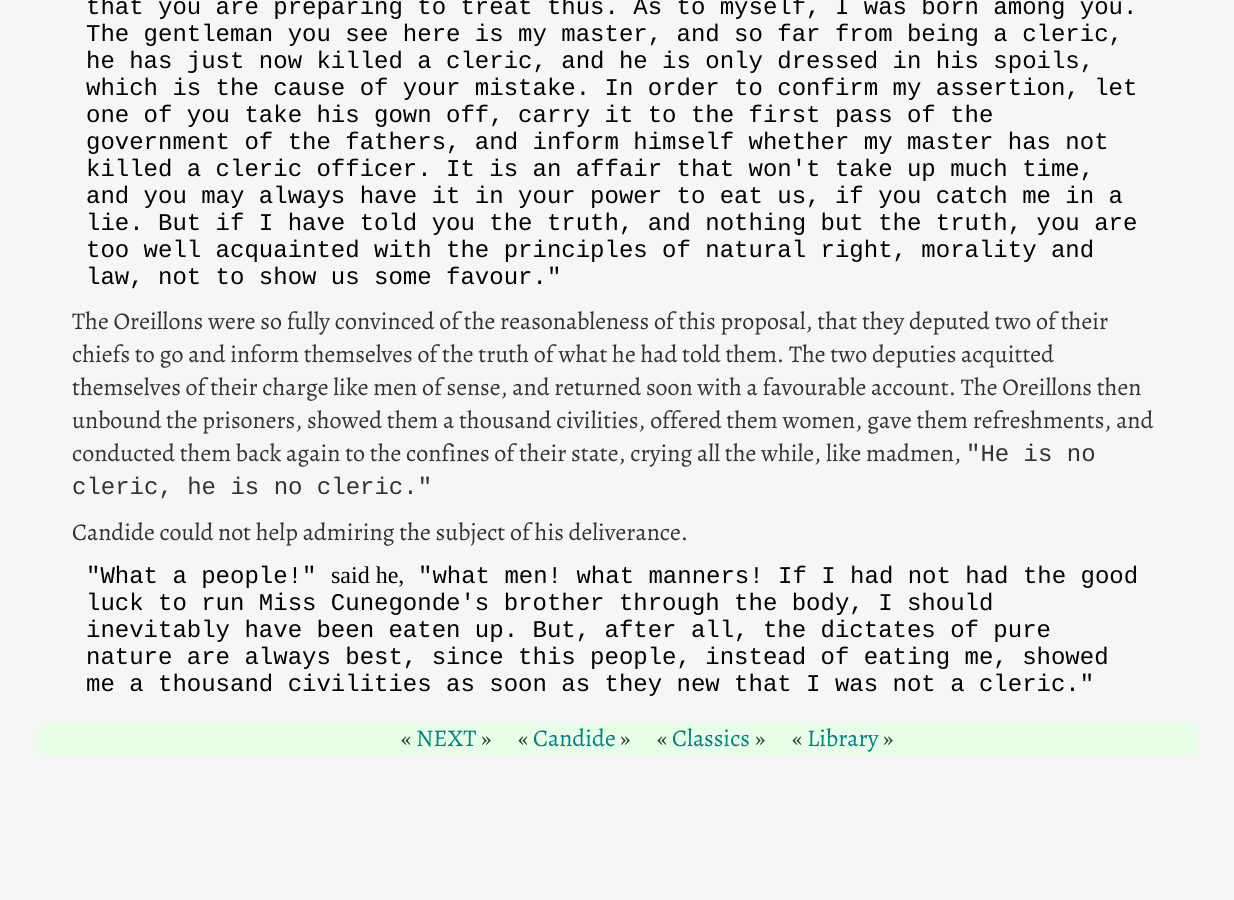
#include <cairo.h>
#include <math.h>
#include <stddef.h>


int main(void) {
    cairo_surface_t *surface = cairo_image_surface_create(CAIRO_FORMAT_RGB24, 1234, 900);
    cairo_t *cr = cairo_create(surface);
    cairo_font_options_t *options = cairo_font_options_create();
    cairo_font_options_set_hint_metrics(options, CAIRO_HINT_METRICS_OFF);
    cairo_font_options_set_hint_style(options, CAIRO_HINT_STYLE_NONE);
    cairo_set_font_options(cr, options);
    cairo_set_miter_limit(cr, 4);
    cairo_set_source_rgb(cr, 0.961, 0.961, 0.961);
    cairo_paint(cr);
    cairo_select_font_face(cr, "Liberation Mono", CAIRO_FONT_SLANT_NORMAL, CAIRO_FONT_WEIGHT_NORMAL);
    cairo_set_font_size(cr, 24);
    cairo_set_source_rgb(cr, 0, 0, 0);
    cairo_move_to(cr, 86, 14);
    cairo_show_text(cr, "that you are preparing to treat thus. As to myself, I was born among you.");
    cairo_move_to(cr, 86, 41);
    cairo_show_text(cr, "The gentleman you see here is my master, and so far from being a cleric,");
    cairo_move_to(cr, 86, 68);
    cairo_show_text(cr, "he has just now killed a cleric, and he is only dressed in his spoils,");
    cairo_move_to(cr, 86, 95);
    cairo_show_text(cr, "which is the cause of your mistake. In order to confirm my assertion, let");
    cairo_move_to(cr, 86, 122);
    cairo_show_text(cr, "one of you take his gown off, carry it to the first pass of the");
    cairo_move_to(cr, 86, 149);
    cairo_show_text(cr, "government of the fathers, and inform himself whether my master has not");
    cairo_move_to(cr, 86, 176);
    cairo_show_text(cr, "killed a cleric officer. It is an affair that won't take up much time,");
    cairo_move_to(cr, 86, 203);
    cairo_show_text(cr, "and you may always have it in your power to eat us, if you catch me in a");
    cairo_move_to(cr, 86, 230);
    cairo_show_text(cr, "lie. But if I have told you the truth, and nothing but the truth, you are");
    cairo_move_to(cr, 86, 257);
    cairo_show_text(cr, "too well acquainted with the principles of natural right, morality and");
    cairo_move_to(cr, 86, 284);
    cairo_show_text(cr, "law, not to show us some favour.\"");
    cairo_select_font_face(cr, "Alegreya", CAIRO_FONT_SLANT_NORMAL, CAIRO_FONT_WEIGHT_NORMAL);
    cairo_set_source_rgb(cr, 0.2, 0.2, 0.2);
    cairo_move_to(cr, 72, 329);
    cairo_show_text(cr, "The Oreillons were so fully convinced of the reasonableness of this proposal, that they deputed two of their");
    cairo_move_to(cr, 72, 362);
    cairo_show_text(cr, "chiefs to go and inform themselves of the truth of what he had told them. The two deputies acquitted");
    cairo_move_to(cr, 72, 395);
    cairo_show_text(cr, "themselves of their charge like men of sense, and returned soon with a favourable account. The Oreillons then");
    cairo_move_to(cr, 72, 428);
    cairo_show_text(cr, "unbound the prisoners, showed them a thousand civilities, offered them women, gave them refreshments, and");
    cairo_move_to(cr, 72, 461);
    cairo_show_text(cr, "conducted them back again to the confines of their state, crying all the while, like madmen,");
    cairo_select_font_face(cr, "Liberation Mono", CAIRO_FONT_SLANT_NORMAL, CAIRO_FONT_WEIGHT_NORMAL);
    cairo_move_to(cr, 966, 461);
    cairo_show_text(cr, "\"He is no");
    cairo_move_to(cr, 72, 494);
    cairo_show_text(cr, "cleric, he is no cleric.\"");
    cairo_select_font_face(cr, "Alegreya", CAIRO_FONT_SLANT_NORMAL, CAIRO_FONT_WEIGHT_NORMAL);
    cairo_move_to(cr, 72, 540);
    cairo_show_text(cr, "Candide could not help admiring the subject of his deliverance.");
    cairo_select_font_face(cr, "Liberation Mono", CAIRO_FONT_SLANT_NORMAL, CAIRO_FONT_WEIGHT_NORMAL);
    cairo_set_source_rgb(cr, 0, 0, 0);
    cairo_move_to(cr, 86, 583);
    cairo_show_text(cr, "\"What a people!\"");
    cairo_select_font_face(cr, "Liberation Serif", CAIRO_FONT_SLANT_NORMAL, CAIRO_FONT_WEIGHT_NORMAL);
    cairo_move_to(cr, 331, 583);
    cairo_show_text(cr, "said he,");
    cairo_select_font_face(cr, "Liberation Mono", CAIRO_FONT_SLANT_NORMAL, CAIRO_FONT_WEIGHT_NORMAL);
    cairo_move_to(cr, 418, 583);
    cairo_show_text(cr, "\"what men! what manners! If I had not had the good");
    cairo_move_to(cr, 86, 610);
    cairo_show_text(cr, "luck to run Miss Cunegonde's brother through the body, I should");
    cairo_move_to(cr, 86, 637);
    cairo_show_text(cr, "inevitably have been eaten up. But, after all, the dictates of pure");
    cairo_move_to(cr, 86, 664);
    cairo_show_text(cr, "nature are always best, since this people, instead of eating me, showed");
    cairo_move_to(cr, 86, 691);
    cairo_show_text(cr, "me a thousand civilities as soon as they new that I was not a cleric.\"");
    cairo_set_source_rgb(cr, 0.902, 1, 0.902);
    cairo_rectangle(cr, 38, 723, 1159, 33);
    cairo_fill(cr);
    cairo_select_font_face(cr, "Alegreya", CAIRO_FONT_SLANT_NORMAL, CAIRO_FONT_WEIGHT_NORMAL);
    cairo_set_source_rgb(cr, 0.2, 0.2, 0.2);
    cairo_move_to(cr, 401, 746);
    cairo_show_text(cr, "«");
    cairo_set_source_rgb(cr, 0, 0.502, 0.502);
    cairo_move_to(cr, 416, 746);
    cairo_show_text(cr, "NEXT");
    cairo_set_source_rgb(cr, 0.2, 0.2, 0.2);
    cairo_move_to(cr, 481, 746);
    cairo_show_text(cr, "»");
    cairo_move_to(cr, 518, 746);
    cairo_show_text(cr, "«");
    cairo_set_source_rgb(cr, 0, 0.502, 0.502);
    cairo_move_to(cr, 533, 746);
    cairo_show_text(cr, "Candide");
    cairo_set_source_rgb(cr, 0.2, 0.2, 0.2);
    cairo_move_to(cr, 620, 746);
    cairo_show_text(cr, "»");
    cairo_move_to(cr, 657, 746);
    cairo_show_text(cr, "«");
    cairo_set_source_rgb(cr, 0, 0.502, 0.502);
    cairo_move_to(cr, 672, 746);
    cairo_show_text(cr, "Classics");
    cairo_set_source_rgb(cr, 0.2, 0.2, 0.2);
    cairo_move_to(cr, 755, 746);
    cairo_show_text(cr, "»");
    cairo_move_to(cr, 792, 746);
    cairo_show_text(cr, "«");
    cairo_set_source_rgb(cr, 0, 0.502, 0.502);
    cairo_move_to(cr, 807, 746);
    cairo_show_text(cr, "Library");
    cairo_set_source_rgb(cr, 0.2, 0.2, 0.2);
    cairo_move_to(cr, 883, 746);
    cairo_show_text(cr, "»");
    cairo_surface_write_to_png(surface, "page.png");
    cairo_font_options_destroy(options);
    cairo_destroy(cr);
    cairo_surface_destroy(surface);
    return 0;
}
